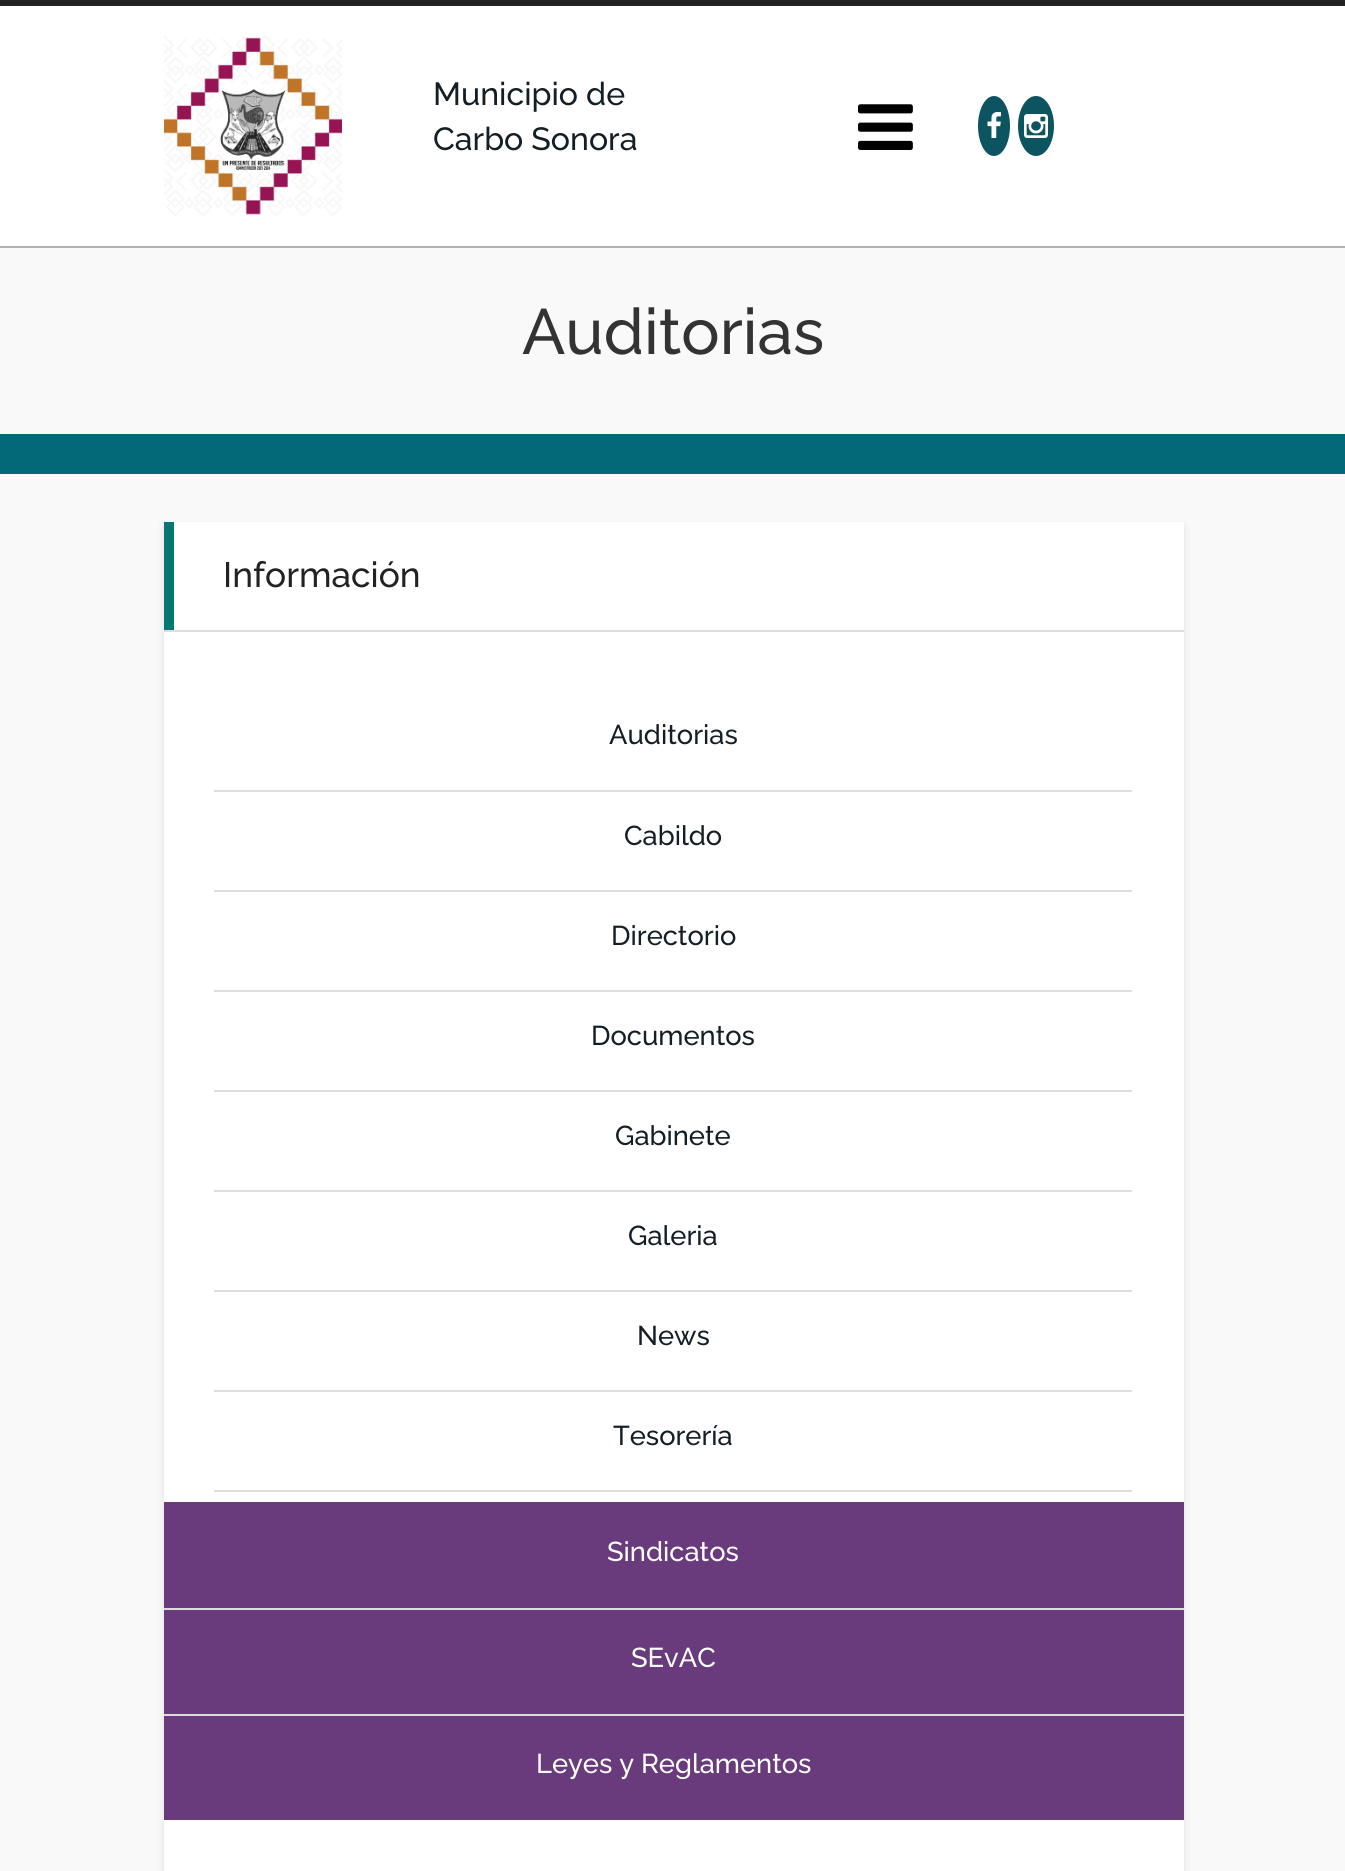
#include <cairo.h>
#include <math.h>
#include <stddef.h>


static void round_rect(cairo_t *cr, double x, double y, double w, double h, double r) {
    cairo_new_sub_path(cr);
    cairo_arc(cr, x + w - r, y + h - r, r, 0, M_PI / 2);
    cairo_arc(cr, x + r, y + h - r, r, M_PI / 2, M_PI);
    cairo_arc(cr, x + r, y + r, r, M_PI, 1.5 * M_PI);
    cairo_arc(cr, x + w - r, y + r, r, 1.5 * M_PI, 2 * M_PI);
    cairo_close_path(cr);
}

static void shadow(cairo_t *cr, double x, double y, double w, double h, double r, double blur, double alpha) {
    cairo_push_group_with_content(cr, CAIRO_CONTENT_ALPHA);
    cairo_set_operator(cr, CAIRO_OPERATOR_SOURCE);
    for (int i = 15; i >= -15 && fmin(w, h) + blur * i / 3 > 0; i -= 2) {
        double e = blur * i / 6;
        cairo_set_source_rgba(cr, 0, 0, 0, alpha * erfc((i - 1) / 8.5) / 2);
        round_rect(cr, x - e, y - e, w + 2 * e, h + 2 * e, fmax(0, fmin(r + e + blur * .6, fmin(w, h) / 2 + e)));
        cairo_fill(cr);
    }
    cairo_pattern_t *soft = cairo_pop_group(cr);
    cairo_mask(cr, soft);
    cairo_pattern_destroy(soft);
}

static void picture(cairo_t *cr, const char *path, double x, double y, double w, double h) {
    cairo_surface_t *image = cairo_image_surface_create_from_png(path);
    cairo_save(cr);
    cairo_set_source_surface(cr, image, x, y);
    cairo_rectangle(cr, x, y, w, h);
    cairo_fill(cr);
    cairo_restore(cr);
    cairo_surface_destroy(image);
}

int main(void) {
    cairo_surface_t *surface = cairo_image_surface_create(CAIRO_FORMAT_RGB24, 1345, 1871);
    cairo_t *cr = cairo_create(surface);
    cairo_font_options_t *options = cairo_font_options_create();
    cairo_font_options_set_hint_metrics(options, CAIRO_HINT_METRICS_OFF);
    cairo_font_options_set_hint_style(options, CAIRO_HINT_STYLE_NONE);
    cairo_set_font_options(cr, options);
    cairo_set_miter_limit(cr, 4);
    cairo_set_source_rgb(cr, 0.973, 0.973, 0.973);
    cairo_paint(cr);
    cairo_set_source_rgb(cr, 1, 1, 1);
    cairo_rectangle(cr, 0, 6, 1345, 240);
    cairo_fill(cr);
    cairo_set_source_rgb(cr, 0.133, 0.133, 0.133);
    cairo_rectangle(cr, 0, 0, 1345, 6);
    cairo_fill(cr);
    cairo_set_source_rgb(cr, 0.69, 0.69, 0.69);
    cairo_rectangle(cr, 0, 246, 1345, 2);
    cairo_fill(cr);
    picture(cr, "img1.png", 164, 36, 178, 180);
    cairo_select_font_face(cr, "Raleway Medium", CAIRO_FONT_SLANT_NORMAL, CAIRO_FONT_WEIGHT_NORMAL);
    cairo_set_font_size(cr, 32);
    cairo_set_source_rgb(cr, 0.082, 0.118, 0.145);
    cairo_move_to(cr, 433, 105);
    cairo_show_text(cr, "Municipio de");
    cairo_move_to(cr, 433, 150);
    cairo_show_text(cr, "Carbo Sonora");
    picture(cr, "img2.png", 858, 104, 55, 46);
    cairo_set_source_rgb(cr, 0.047, 0.329, 0.376);
    cairo_new_path(cr);
    cairo_move_to(cr, 994, 96);
    cairo_curve_to(cr, 1003, 96, 1010, 109.5, 1010, 126);
    cairo_curve_to(cr, 1010, 142.5, 1003, 156, 994, 156);
    cairo_curve_to(cr, 985, 156, 978, 142.5, 978, 126);
    cairo_curve_to(cr, 978, 109.5, 985, 96, 994, 96);
    cairo_close_path(cr);
    cairo_fill(cr);
    picture(cr, "img3.png", 987, 112, 14, 26);
    cairo_new_path(cr);
    cairo_move_to(cr, 1036, 96);
    cairo_curve_to(cr, 1046, 96, 1054, 109.5, 1054, 126);
    cairo_curve_to(cr, 1054, 142.5, 1046, 156, 1036, 156);
    cairo_curve_to(cr, 1026, 156, 1018, 142.5, 1018, 126);
    cairo_curve_to(cr, 1018, 109.5, 1026, 96, 1036, 96);
    cairo_close_path(cr);
    cairo_fill(cr);
    picture(cr, "img4.png", 1024, 114, 24, 24);
    cairo_set_font_size(cr, 64);
    cairo_set_source_rgb(cr, 0.2, 0.2, 0.2);
    cairo_move_to(cr, 522, 354);
    cairo_show_text(cr, "Auditorias");
    cairo_set_source_rgb(cr, 0.012, 0.408, 0.471);
    cairo_rectangle(cr, 0, 434, 1345, 40);
    cairo_fill(cr);
    cairo_set_source_rgb(cr, 0, 0, 0);
    shadow(cr, 164, 526, 1020, 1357, 0, 4, 0.1);
    cairo_set_source_rgb(cr, 1, 1, 1);
    cairo_rectangle(cr, 164, 522, 1020, 1349);
    cairo_fill(cr);
    cairo_set_source_rgb(cr, 0.867, 0.867, 0.867);
    cairo_rectangle(cr, 164, 630, 1020, 2);
    cairo_fill(cr);
    cairo_set_source_rgb(cr, 0.016, 0.475, 0.451);
    cairo_rectangle(cr, 164, 522, 10, 108);
    cairo_fill(cr);
    cairo_set_font_size(cr, 35.25);
    cairo_set_source_rgb(cr, 0.133, 0.133, 0.133);
    cairo_move_to(cr, 223, 587);
    cairo_show_text(cr, "Información");
    cairo_set_source_rgb(cr, 0.871, 0.871, 0.871);
    cairo_rectangle(cr, 214, 790, 918, 2);
    cairo_fill(cr);
    cairo_set_font_size(cr, 27.25);
    cairo_set_source_rgb(cr, 0.082, 0.118, 0.145);
    cairo_move_to(cr, 609, 744);
    cairo_show_text(cr, "Auditorias");
    cairo_set_source_rgb(cr, 0.871, 0.871, 0.871);
    cairo_rectangle(cr, 214, 890, 918, 2);
    cairo_fill(cr);
    cairo_set_source_rgb(cr, 0.082, 0.118, 0.145);
    cairo_move_to(cr, 624, 845);
    cairo_show_text(cr, "Cabildo");
    cairo_set_source_rgb(cr, 0.871, 0.871, 0.871);
    cairo_rectangle(cr, 214, 990, 918, 2);
    cairo_fill(cr);
    cairo_set_source_rgb(cr, 0.082, 0.118, 0.145);
    cairo_move_to(cr, 611, 945);
    cairo_show_text(cr, "Directorio");
    cairo_set_source_rgb(cr, 0.871, 0.871, 0.871);
    cairo_rectangle(cr, 214, 1090, 918, 2);
    cairo_fill(cr);
    cairo_set_source_rgb(cr, 0.082, 0.118, 0.145);
    cairo_move_to(cr, 591, 1045);
    cairo_show_text(cr, "Documentos");
    cairo_set_source_rgb(cr, 0.871, 0.871, 0.871);
    cairo_rectangle(cr, 214, 1190, 918, 2);
    cairo_fill(cr);
    cairo_set_source_rgb(cr, 0.082, 0.118, 0.145);
    cairo_move_to(cr, 615, 1145);
    cairo_show_text(cr, "Gabinete");
    cairo_set_source_rgb(cr, 0.871, 0.871, 0.871);
    cairo_rectangle(cr, 214, 1290, 918, 2);
    cairo_fill(cr);
    cairo_set_source_rgb(cr, 0.082, 0.118, 0.145);
    cairo_move_to(cr, 628, 1245);
    cairo_show_text(cr, "Galeria");
    cairo_set_source_rgb(cr, 0.871, 0.871, 0.871);
    cairo_rectangle(cr, 214, 1390, 918, 2);
    cairo_fill(cr);
    cairo_set_source_rgb(cr, 0.082, 0.118, 0.145);
    cairo_move_to(cr, 637, 1345);
    cairo_show_text(cr, "News");
    cairo_set_source_rgb(cr, 0.871, 0.871, 0.871);
    cairo_rectangle(cr, 214, 1490, 918, 2);
    cairo_fill(cr);
    cairo_set_source_rgb(cr, 0.082, 0.118, 0.145);
    cairo_move_to(cr, 613, 1445);
    cairo_show_text(cr, "Tesorería");
    cairo_set_source_rgb(cr, 0.412, 0.231, 0.486);
    cairo_rectangle(cr, 164, 1502, 1020, 106);
    cairo_fill(cr);
    cairo_set_source_rgb(cr, 0.871, 0.871, 0.871);
    cairo_rectangle(cr, 164, 1608, 1020, 2);
    cairo_fill(cr);
    cairo_set_source_rgb(cr, 1, 1, 1);
    cairo_move_to(cr, 607, 1561);
    cairo_show_text(cr, "Sindicatos");
    cairo_set_source_rgb(cr, 0.412, 0.231, 0.486);
    cairo_rectangle(cr, 164, 1610, 1020, 104);
    cairo_fill(cr);
    cairo_set_source_rgb(cr, 0.871, 0.871, 0.871);
    cairo_rectangle(cr, 164, 1714, 1020, 2);
    cairo_fill(cr);
    cairo_set_source_rgb(cr, 1, 1, 1);
    cairo_move_to(cr, 631, 1667);
    cairo_show_text(cr, "SEvAC");
    cairo_set_source_rgb(cr, 0.412, 0.231, 0.486);
    cairo_rectangle(cr, 164, 1716, 1020, 104);
    cairo_fill(cr);
    cairo_set_source_rgb(cr, 1, 1, 1);
    cairo_move_to(cr, 536, 1773);
    cairo_show_text(cr, "Leyes y Reglamentos");
    cairo_surface_write_to_png(surface, "page.png");
    cairo_font_options_destroy(options);
    cairo_destroy(cr);
    cairo_surface_destroy(surface);
    return 0;
}
